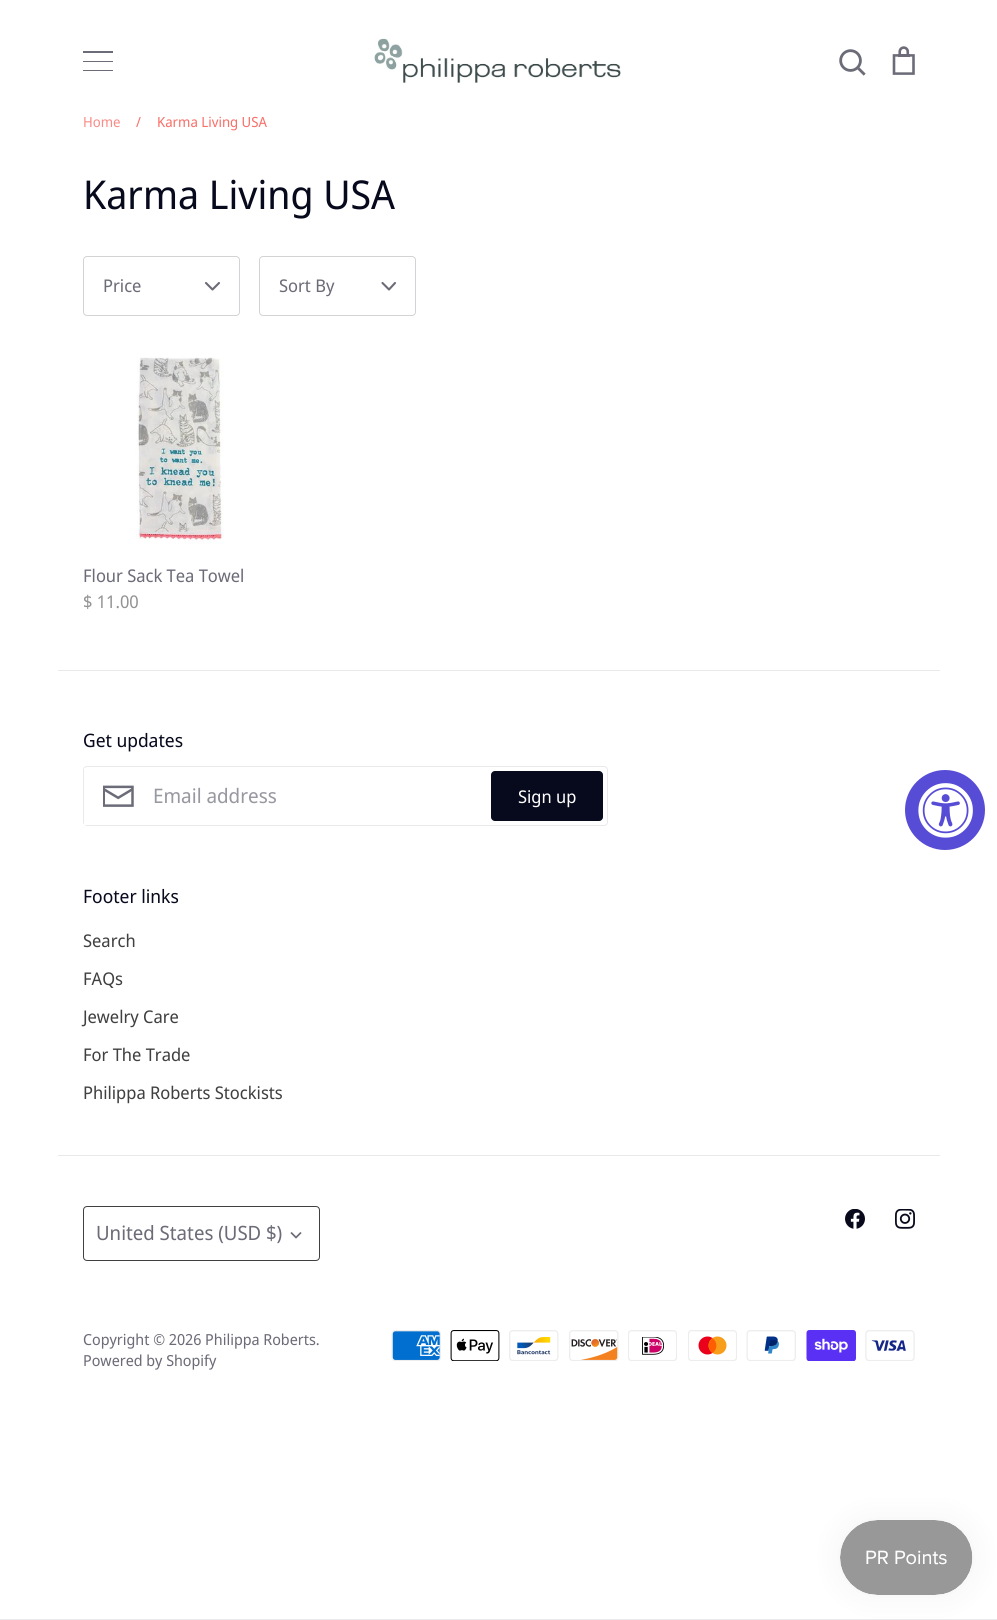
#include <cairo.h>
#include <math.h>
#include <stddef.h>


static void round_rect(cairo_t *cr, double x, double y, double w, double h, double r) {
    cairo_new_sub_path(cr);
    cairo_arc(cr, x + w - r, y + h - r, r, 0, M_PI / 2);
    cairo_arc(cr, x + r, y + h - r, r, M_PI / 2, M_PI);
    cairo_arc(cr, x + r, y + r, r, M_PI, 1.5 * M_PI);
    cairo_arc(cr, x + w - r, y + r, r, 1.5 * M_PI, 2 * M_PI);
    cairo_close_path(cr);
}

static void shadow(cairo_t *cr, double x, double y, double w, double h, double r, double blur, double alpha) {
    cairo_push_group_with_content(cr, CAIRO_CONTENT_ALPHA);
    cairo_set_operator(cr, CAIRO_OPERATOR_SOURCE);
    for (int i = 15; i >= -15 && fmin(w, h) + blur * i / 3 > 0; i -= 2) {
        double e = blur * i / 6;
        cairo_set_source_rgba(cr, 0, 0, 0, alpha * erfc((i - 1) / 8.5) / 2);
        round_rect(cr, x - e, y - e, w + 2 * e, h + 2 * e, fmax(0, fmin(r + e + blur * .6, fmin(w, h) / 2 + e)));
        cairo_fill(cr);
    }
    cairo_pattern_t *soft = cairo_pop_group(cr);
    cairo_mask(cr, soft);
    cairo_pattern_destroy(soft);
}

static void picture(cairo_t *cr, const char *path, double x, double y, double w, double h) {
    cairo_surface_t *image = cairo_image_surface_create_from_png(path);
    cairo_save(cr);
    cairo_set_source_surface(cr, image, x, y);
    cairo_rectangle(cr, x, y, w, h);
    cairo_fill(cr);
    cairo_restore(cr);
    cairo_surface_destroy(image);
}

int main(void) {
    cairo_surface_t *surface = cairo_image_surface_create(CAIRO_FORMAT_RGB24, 997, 1620);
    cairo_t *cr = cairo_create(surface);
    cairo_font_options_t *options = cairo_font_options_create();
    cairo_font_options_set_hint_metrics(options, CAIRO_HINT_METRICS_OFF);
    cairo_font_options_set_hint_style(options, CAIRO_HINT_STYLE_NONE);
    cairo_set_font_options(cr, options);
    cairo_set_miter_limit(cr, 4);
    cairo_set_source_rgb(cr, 1, 1, 1);
    cairo_paint(cr);
    cairo_set_source_rgb(cr, 0.42, 0.424, 0.467);
    cairo_rectangle(cr, 83, 51, 30, 2);
    cairo_fill(cr);
    cairo_rectangle(cr, 83, 61, 30, 1);
    cairo_fill(cr);
    cairo_rectangle(cr, 83, 70, 30, 1);
    cairo_fill(cr);
    picture(cr, "img1.png", 374, 38, 247, 45);
    picture(cr, "img2.png", 839, 49, 27, 27);
    picture(cr, "img3.png", 892, 46, 23, 29);
    cairo_set_source_rgb(cr, 0.914, 0.914, 0.922);
    cairo_rectangle(cr, 0, 1619, 997, 1);
    cairo_fill(cr);
    cairo_select_font_face(cr, "Noto Sans Display", CAIRO_FONT_SLANT_NORMAL, CAIRO_FONT_WEIGHT_NORMAL);
    cairo_set_font_size(cr, 14);
    cairo_set_source_rgb(cr, 0.976, 0.549, 0.529);
    cairo_move_to(cr, 83, 127);
    cairo_show_text(cr, "Home");
    cairo_set_source_rgb(cr, 0.973, 0.435, 0.412);
    cairo_move_to(cr, 136, 127);
    cairo_show_text(cr, "/");
    cairo_move_to(cr, 157, 127);
    cairo_show_text(cr, "Karma Living USA");
    cairo_set_font_size(cr, 39.75);
    cairo_set_source_rgb(cr, 0.031, 0.039, 0.11);
    cairo_move_to(cr, 83, 209);
    cairo_show_text(cr, "Karma Living USA");
    round_rect(cr, 83.5, 256.5, 156, 59, 3.5);
    cairo_set_source_rgb(cr, 0.827, 0.827, 0.839);
    cairo_set_line_width(cr, 1);
    cairo_stroke(cr);
    cairo_set_font_size(cr, 17.5);
    cairo_set_source_rgb(cr, 0.42, 0.424, 0.467);
    cairo_move_to(cr, 103, 292);
    cairo_show_text(cr, "Price");
    cairo_new_path(cr);
    cairo_move_to(cr, 206, 283);
    cairo_line_to(cr, 212.5, 289.5);
    cairo_line_to(cr, 219, 283);
    cairo_set_line_width(cr, 2.1);
    cairo_set_line_cap(cr, CAIRO_LINE_CAP_ROUND);
    cairo_set_line_join(cr, CAIRO_LINE_JOIN_ROUND);
    cairo_stroke(cr);
    round_rect(cr, 259.5, 256.5, 156, 59, 3.5);
    cairo_set_source_rgb(cr, 0.827, 0.827, 0.839);
    cairo_set_line_width(cr, 1);
    cairo_set_line_cap(cr, CAIRO_LINE_CAP_BUTT);
    cairo_set_line_join(cr, CAIRO_LINE_JOIN_MITER);
    cairo_stroke(cr);
    cairo_set_source_rgb(cr, 0.42, 0.424, 0.467);
    cairo_move_to(cr, 279, 292);
    cairo_show_text(cr, "Sort By");
    cairo_new_path(cr);
    cairo_move_to(cr, 382.5, 283);
    cairo_line_to(cr, 389, 289.5);
    cairo_line_to(cr, 395, 283);
    cairo_set_line_width(cr, 2.1);
    cairo_set_line_cap(cr, CAIRO_LINE_CAP_ROUND);
    cairo_set_line_join(cr, CAIRO_LINE_JOIN_ROUND);
    cairo_stroke(cr);
    picture(cr, "img4.png", 135, 357, 89, 187);
    cairo_move_to(cr, 83, 582);
    cairo_show_text(cr, "Flour Sack Tea Towel");
    cairo_set_source_rgb(cr, 0.576, 0.576, 0.576);
    cairo_move_to(cr, 83, 608);
    cairo_show_text(cr, "$ 11.00");
    cairo_set_source_rgb(cr, 0.914, 0.914, 0.922);
    cairo_rectangle(cr, 58, 670, 882, 1);
    cairo_fill(cr);
    cairo_rectangle(cr, 58, 1155, 882, 1);
    cairo_fill(cr);
    cairo_set_font_size(cr, 18.5);
    cairo_set_source_rgb(cr, 0.031, 0.039, 0.11);
    cairo_move_to(cr, 83, 747);
    cairo_show_text(cr, "Get updates");
    round_rect(cr, 83.5, 766.5, 524, 59, 3.5);
    cairo_set_source_rgb(cr, 0.914, 0.914, 0.922);
    cairo_set_line_width(cr, 1);
    cairo_set_line_cap(cr, CAIRO_LINE_CAP_BUTT);
    cairo_set_line_join(cr, CAIRO_LINE_JOIN_MITER);
    cairo_stroke(cr);
    picture(cr, "img5.png", 103, 785, 31, 22);
    cairo_set_source_rgb(cr, 1, 1, 1);
    cairo_rectangle(cr, 84, 768, 2, 57);
    cairo_fill(cr);
    cairo_set_font_size(cr, 20);
    cairo_set_source_rgb(cr, 0.592, 0.596, 0.627);
    cairo_move_to(cr, 153, 803);
    cairo_show_text(cr, "Email address");
    cairo_set_source_rgb(cr, 0.031, 0.039, 0.11);
    round_rect(cr, 491.5, 771.5, 111, 49, 3.5);
    cairo_fill_preserve(cr);
    cairo_stroke(cr);
    cairo_set_font_size(cr, 17.5);
    cairo_set_source_rgb(cr, 1, 1, 1);
    cairo_move_to(cr, 518, 803);
    cairo_show_text(cr, "Sign up");
    cairo_set_font_size(cr, 18.5);
    cairo_set_source_rgb(cr, 0.031, 0.039, 0.11);
    cairo_move_to(cr, 83, 903);
    cairo_show_text(cr, "Footer links");
    cairo_set_font_size(cr, 17.5);
    cairo_set_source_rgb(cr, 0.251, 0.251, 0.251);
    cairo_move_to(cr, 83, 947);
    cairo_show_text(cr, "Search");
    cairo_move_to(cr, 83, 985);
    cairo_show_text(cr, "FAQs");
    cairo_move_to(cr, 83, 1023);
    cairo_show_text(cr, "Jewelry Care");
    cairo_move_to(cr, 83, 1061);
    cairo_show_text(cr, "For The Trade");
    cairo_move_to(cr, 83, 1099);
    cairo_show_text(cr, "Philippa Roberts Stockists");
    picture(cr, "img6.png", 845, 1209, 20, 20);
    picture(cr, "img7.png", 895, 1209, 20, 20);
    round_rect(cr, 83.5, 1206.5, 236, 54, 3.5);
    cairo_stroke(cr);
    cairo_set_font_size(cr, 19.75);
    cairo_set_source_rgb(cr, 0.42, 0.424, 0.467);
    cairo_move_to(cr, 96, 1240);
    cairo_show_text(cr, "United States (USD $)");
    cairo_new_path(cr);
    cairo_move_to(cr, 291, 1232.5);
    cairo_line_to(cr, 296, 1237.5);
    cairo_line_to(cr, 301, 1232.5);
    cairo_set_line_width(cr, 1.7);
    cairo_stroke(cr);
    cairo_set_font_size(cr, 15.2);
    cairo_move_to(cr, 83, 1345);
    cairo_show_text(cr, "Copyright © 2026 Philippa Roberts.");
    cairo_move_to(cr, 83, 1366);
    cairo_show_text(cr, "Powered by Shopify");
    picture(cr, "img8.png", 391, 1330, 50, 31);
    picture(cr, "img9.png", 450, 1330, 50, 31);
    picture(cr, "img10.png", 509, 1330, 50, 31);
    picture(cr, "img11.png", 569, 1330, 50, 31);
    picture(cr, "img12.png", 628, 1330, 49, 31);
    picture(cr, "img13.png", 688, 1330, 49, 31);
    picture(cr, "img14.png", 746, 1330, 50, 31);
    picture(cr, "img15.png", 806, 1330, 50, 31);
    picture(cr, "img16.png", 865, 1330, 50, 31);
    cairo_set_source_rgb(cr, 0.341, 0.298, 0.835);
    cairo_arc(cr, 945, 810, 40, 0, 2 * M_PI);
    cairo_fill(cr);
    picture(cr, "img17.png", 918, 783, 55, 55);
    cairo_set_source_rgb(cr, 0, 0, 0);
    shadow(cr, 840, 1520, 133, 75, 37.5, 15.5, 0.05);
    picture(cr, "img18.png", 840, 1520, 133, 75);
    cairo_surface_write_to_png(surface, "page.png");
    cairo_font_options_destroy(options);
    cairo_destroy(cr);
    cairo_surface_destroy(surface);
    return 0;
}
